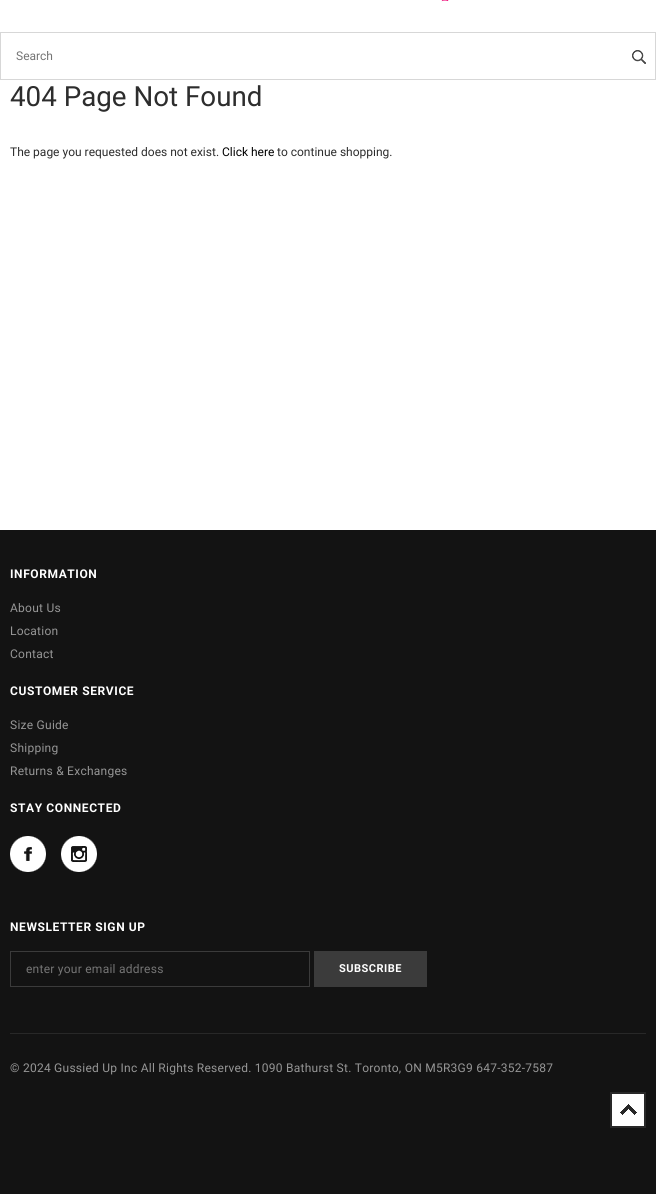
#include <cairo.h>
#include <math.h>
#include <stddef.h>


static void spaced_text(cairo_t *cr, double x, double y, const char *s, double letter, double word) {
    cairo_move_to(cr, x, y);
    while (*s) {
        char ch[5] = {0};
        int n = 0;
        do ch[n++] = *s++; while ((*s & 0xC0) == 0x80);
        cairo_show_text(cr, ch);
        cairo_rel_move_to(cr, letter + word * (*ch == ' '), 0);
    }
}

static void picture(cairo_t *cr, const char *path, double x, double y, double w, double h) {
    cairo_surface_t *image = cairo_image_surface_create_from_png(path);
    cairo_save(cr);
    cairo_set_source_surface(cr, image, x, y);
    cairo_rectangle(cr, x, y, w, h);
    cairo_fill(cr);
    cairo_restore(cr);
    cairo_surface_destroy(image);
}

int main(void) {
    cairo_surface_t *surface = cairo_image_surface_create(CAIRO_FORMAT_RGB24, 656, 1194);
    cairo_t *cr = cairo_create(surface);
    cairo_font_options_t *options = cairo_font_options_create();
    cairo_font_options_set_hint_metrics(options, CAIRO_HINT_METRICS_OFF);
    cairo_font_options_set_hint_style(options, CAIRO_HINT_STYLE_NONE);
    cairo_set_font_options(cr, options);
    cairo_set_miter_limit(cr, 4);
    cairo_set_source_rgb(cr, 1, 1, 1);
    cairo_paint(cr);
    picture(cr, "img1.png", 441, 0, 8, 2);
    cairo_rectangle(cr, 0.5, 32.5, 655, 47);
    cairo_set_source_rgb(cr, 0.843, 0.843, 0.843);
    cairo_set_line_width(cr, 1);
    cairo_stroke(cr);
    cairo_select_font_face(cr, "Roboto", CAIRO_FONT_SLANT_NORMAL, CAIRO_FONT_WEIGHT_NORMAL);
    cairo_set_font_size(cr, 12);
    cairo_set_source_rgb(cr, 0.459, 0.459, 0.459);
    cairo_move_to(cr, 16, 60);
    cairo_show_text(cr, "Search");
    picture(cr, "img2.png", 632, 50, 14, 14);
    cairo_set_font_size(cr, 27.75);
    cairo_set_source_rgb(cr, 0.176, 0.176, 0.176);
    cairo_move_to(cr, 10, 106);
    cairo_show_text(cr, "404 Page Not Found");
    cairo_set_font_size(cr, 12);
    cairo_move_to(cr, 10, 156);
    cairo_show_text(cr, "The page you requested does not exist.");
    cairo_set_source_rgb(cr, 0, 0, 0);
    cairo_move_to(cr, 222, 156);
    cairo_show_text(cr, "Click here");
    cairo_set_source_rgb(cr, 0.176, 0.176, 0.176);
    cairo_move_to(cr, 277, 156);
    cairo_show_text(cr, "to continue shopping.");
    cairo_set_source_rgb(cr, 0.078, 0.078, 0.078);
    cairo_rectangle(cr, 0, 530, 656, 664);
    cairo_fill(cr);
    cairo_select_font_face(cr, "Roboto", CAIRO_FONT_SLANT_NORMAL, CAIRO_FONT_WEIGHT_BOLD);
    cairo_set_source_rgb(cr, 1, 1, 1);
    spaced_text(cr, 10, 578, "INFORMATION", 0.6, 0);
    cairo_select_font_face(cr, "Roboto", CAIRO_FONT_SLANT_NORMAL, CAIRO_FONT_WEIGHT_NORMAL);
    cairo_set_source_rgb(cr, 0.588, 0.588, 0.588);
    spaced_text(cr, 10, 612, "About Us", 0.25, 0);
    spaced_text(cr, 10, 635, "Location", 0.25, 0);
    spaced_text(cr, 10, 658, "Contact", 0.25, 0);
    cairo_select_font_face(cr, "Roboto", CAIRO_FONT_SLANT_NORMAL, CAIRO_FONT_WEIGHT_BOLD);
    cairo_set_source_rgb(cr, 1, 1, 1);
    spaced_text(cr, 10, 695, "CUSTOMER SERVICE", 0.6, 0);
    cairo_select_font_face(cr, "Roboto", CAIRO_FONT_SLANT_NORMAL, CAIRO_FONT_WEIGHT_NORMAL);
    cairo_set_source_rgb(cr, 0.588, 0.588, 0.588);
    spaced_text(cr, 10, 729, "Size Guide", 0.25, 0);
    spaced_text(cr, 10, 752, "Shipping", 0.25, 0);
    spaced_text(cr, 10, 775, "Returns & Exchanges", 0.25, 0);
    cairo_select_font_face(cr, "Roboto", CAIRO_FONT_SLANT_NORMAL, CAIRO_FONT_WEIGHT_BOLD);
    cairo_set_source_rgb(cr, 1, 1, 1);
    spaced_text(cr, 10, 812, "STAY CONNECTED", 0.6, 0);
    picture(cr, "img3.png", 10, 836, 36, 36);
    picture(cr, "img4.png", 61, 836, 36, 36);
    spaced_text(cr, 10, 931, "NEWSLETTER SIGN UP", 0.6, 0);
    cairo_rectangle(cr, 10.5, 951.5, 299, 35);
    cairo_set_source_rgb(cr, 0.231, 0.231, 0.231);
    cairo_stroke(cr);
    cairo_select_font_face(cr, "Roboto", CAIRO_FONT_SLANT_NORMAL, CAIRO_FONT_WEIGHT_NORMAL);
    cairo_set_source_rgb(cr, 0.459, 0.459, 0.459);
    spaced_text(cr, 26, 973, "enter your email address", 0.25, 0);
    cairo_set_source_rgb(cr, 0.231, 0.231, 0.231);
    cairo_rectangle(cr, 314, 951, 113, 36);
    cairo_fill(cr);
    cairo_select_font_face(cr, "Roboto", CAIRO_FONT_SLANT_NORMAL, CAIRO_FONT_WEIGHT_BOLD);
    cairo_set_font_size(cr, 11);
    cairo_set_source_rgb(cr, 1, 1, 1);
    spaced_text(cr, 339, 972, "SUBSCRIBE", 0.5, 0);
    cairo_set_source_rgb(cr, 0.157, 0.157, 0.157);
    cairo_rectangle(cr, 10, 1033, 636, 1);
    cairo_fill(cr);
    cairo_select_font_face(cr, "Roboto", CAIRO_FONT_SLANT_NORMAL, CAIRO_FONT_WEIGHT_NORMAL);
    cairo_set_font_size(cr, 12);
    cairo_set_source_rgb(cr, 0.588, 0.588, 0.588);
    spaced_text(cr, 10, 1072, "© 2024 Gussied Up Inc All Rights Reserved. 1090 Bathurst St. Toronto, ON M5R3G9 647-352-7587", 0.25, 0);
    cairo_set_source_rgb(cr, 1, 1, 1);
    cairo_rectangle(cr, 612, 1094, 32, 32);
    cairo_fill(cr);
    picture(cr, "img5.png", 610, 1092, 36, 36);
    cairo_surface_write_to_png(surface, "page.png");
    cairo_font_options_destroy(options);
    cairo_destroy(cr);
    cairo_surface_destroy(surface);
    return 0;
}
